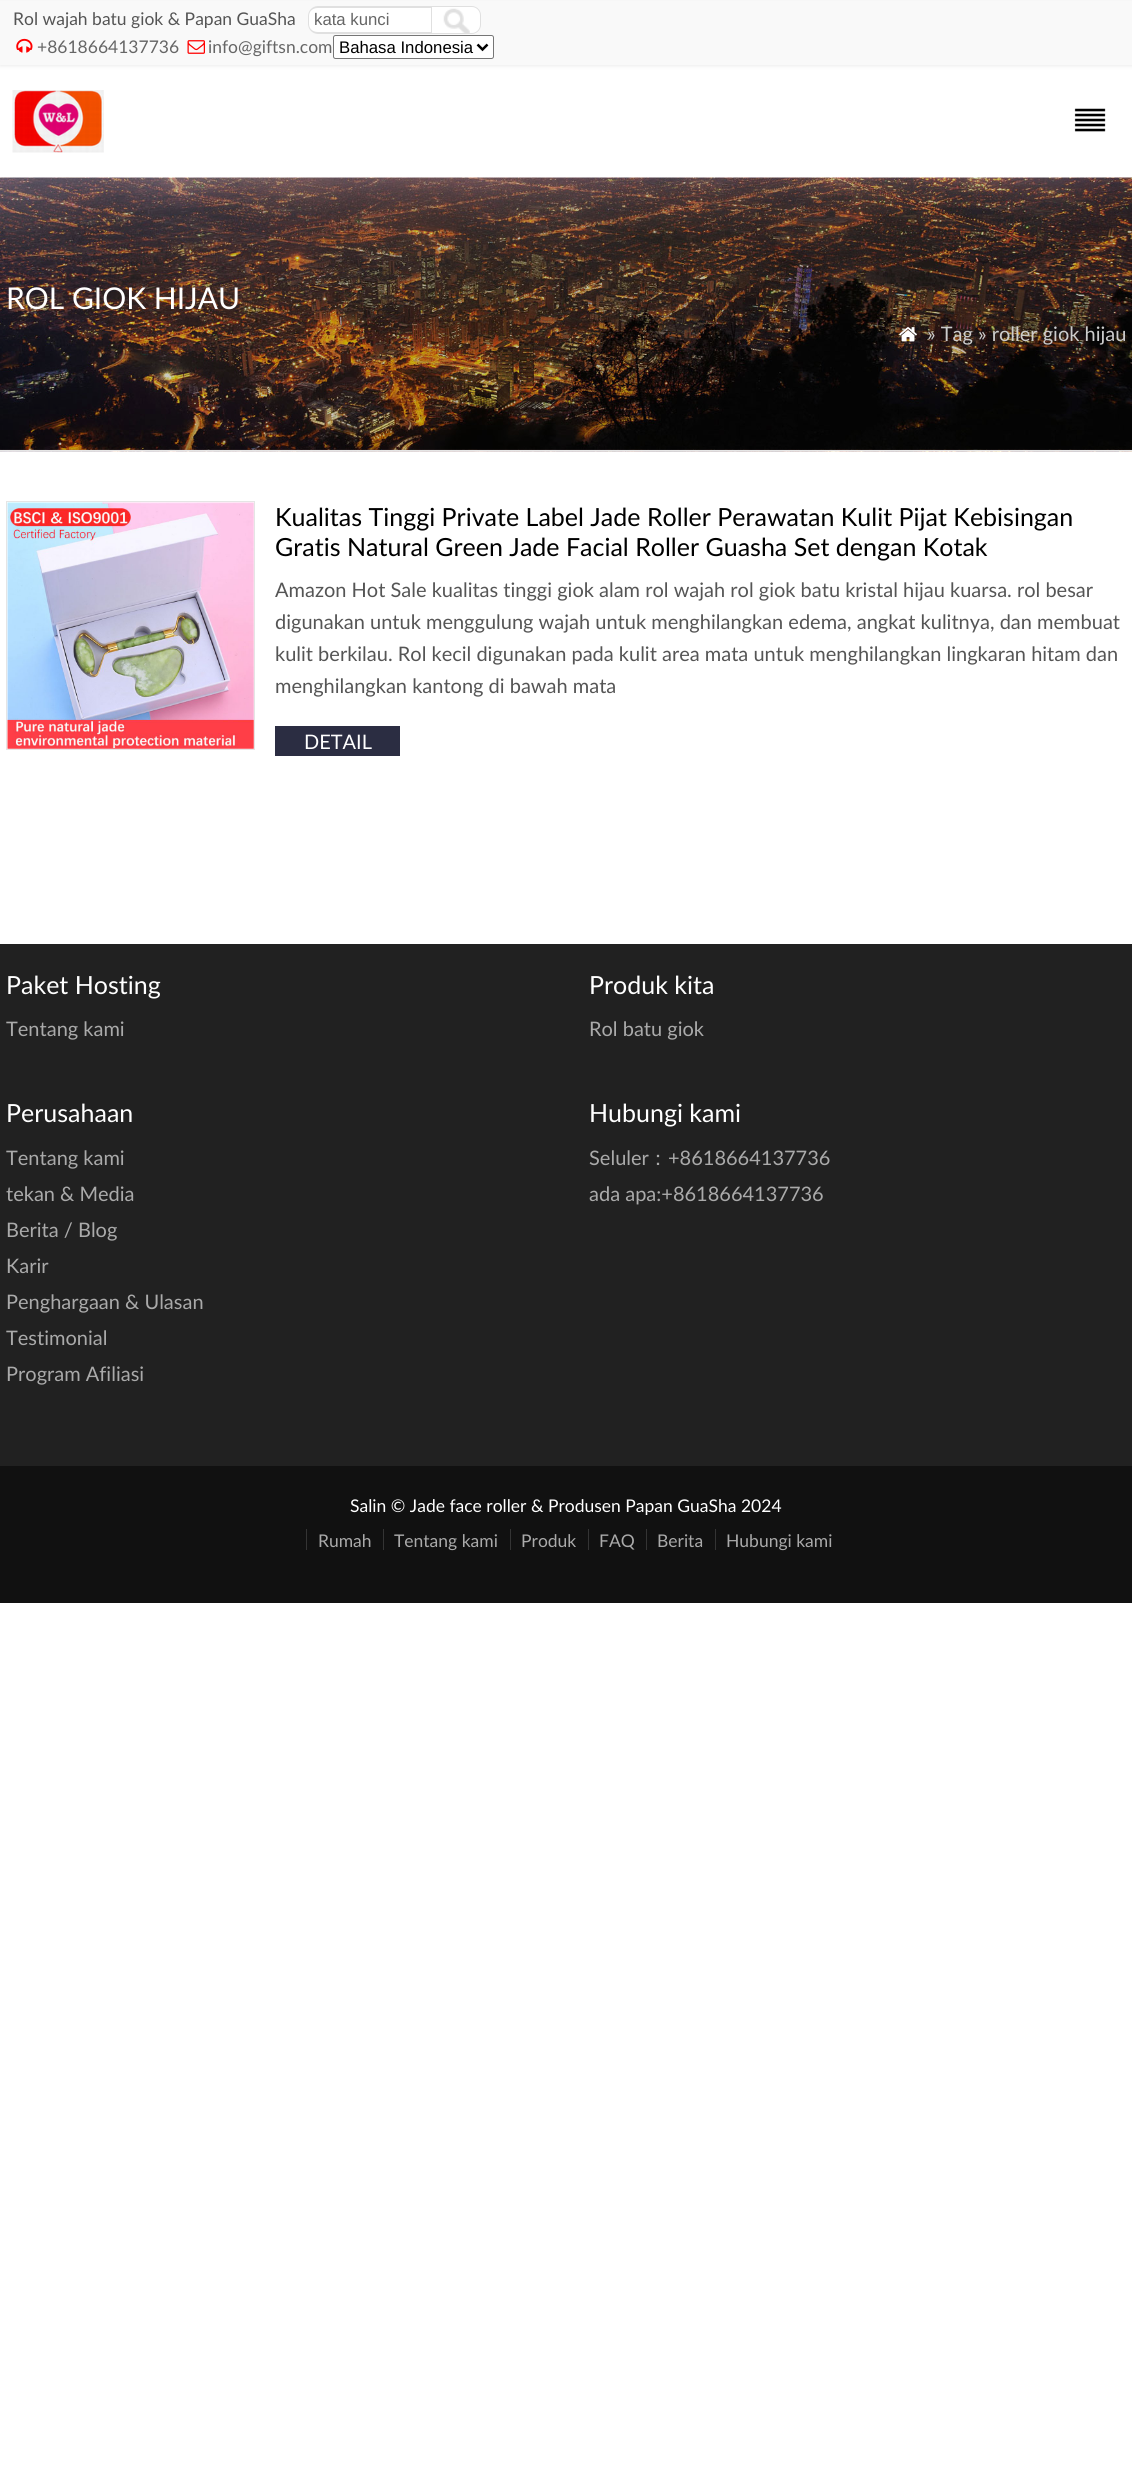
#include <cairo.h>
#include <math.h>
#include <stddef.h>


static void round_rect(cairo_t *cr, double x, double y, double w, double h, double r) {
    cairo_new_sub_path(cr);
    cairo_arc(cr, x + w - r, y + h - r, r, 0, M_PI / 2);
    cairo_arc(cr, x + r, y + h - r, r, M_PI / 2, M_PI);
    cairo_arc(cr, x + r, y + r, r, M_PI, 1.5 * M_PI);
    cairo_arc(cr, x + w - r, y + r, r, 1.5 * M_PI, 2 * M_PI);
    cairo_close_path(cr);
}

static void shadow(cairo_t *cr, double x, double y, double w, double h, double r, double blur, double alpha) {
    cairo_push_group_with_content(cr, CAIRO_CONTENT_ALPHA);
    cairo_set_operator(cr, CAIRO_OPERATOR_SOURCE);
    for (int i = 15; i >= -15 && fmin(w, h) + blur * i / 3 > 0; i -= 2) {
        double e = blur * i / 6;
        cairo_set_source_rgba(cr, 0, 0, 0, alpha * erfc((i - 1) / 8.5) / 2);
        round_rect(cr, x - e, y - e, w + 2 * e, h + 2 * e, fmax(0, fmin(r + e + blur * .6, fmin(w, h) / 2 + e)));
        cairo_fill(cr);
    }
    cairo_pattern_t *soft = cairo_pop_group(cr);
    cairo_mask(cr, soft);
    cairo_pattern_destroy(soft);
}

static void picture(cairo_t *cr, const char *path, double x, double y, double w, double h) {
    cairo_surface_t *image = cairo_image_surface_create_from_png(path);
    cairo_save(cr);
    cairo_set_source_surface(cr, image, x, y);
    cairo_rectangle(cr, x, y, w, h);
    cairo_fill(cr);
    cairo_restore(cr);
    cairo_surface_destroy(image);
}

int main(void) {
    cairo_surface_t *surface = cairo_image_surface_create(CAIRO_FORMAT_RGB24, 1132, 2484);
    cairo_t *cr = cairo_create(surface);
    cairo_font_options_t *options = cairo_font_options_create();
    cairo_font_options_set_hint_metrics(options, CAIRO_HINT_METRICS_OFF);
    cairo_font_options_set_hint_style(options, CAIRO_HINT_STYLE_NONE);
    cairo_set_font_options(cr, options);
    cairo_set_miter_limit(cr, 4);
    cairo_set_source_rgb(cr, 1, 1, 1);
    cairo_paint(cr);
    cairo_set_source_rgb(cr, 0.2, 0.2, 0.2);
    shadow(cr, 0, 1, 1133, 65, 0, 2, 0.1);
    cairo_set_source_rgb(cr, 0.973, 0.973, 0.973);
    cairo_rectangle(cr, 0, 1, 1132, 64);
    cairo_fill(cr);
    cairo_select_font_face(cr, "Lato", CAIRO_FONT_SLANT_NORMAL, CAIRO_FONT_WEIGHT_NORMAL);
    cairo_set_font_size(cr, 17.5);
    cairo_set_source_rgb(cr, 0.333, 0.333, 0.333);
    cairo_move_to(cr, 13, 25);
    cairo_show_text(cr, "Rol wajah batu giok & Papan GuaSha");
    cairo_set_source_rgb(cr, 1, 1, 1);
    cairo_new_path(cr);
    cairo_move_to(cr, 318, 6);
    cairo_line_to(cr, 431, 6);
    cairo_line_to(cr, 431, 34);
    cairo_line_to(cr, 318, 34);
    cairo_curve_to(cr, 312.5, 34, 308, 29.5, 308, 24);
    cairo_line_to(cr, 308, 16);
    cairo_curve_to(cr, 308, 10.5, 312.5, 6, 318, 6);
    cairo_close_path(cr);
    cairo_fill(cr);
    cairo_set_source_rgb(cr, 0.878, 0.878, 0.878);
    cairo_set_fill_rule(cr, CAIRO_FILL_RULE_EVEN_ODD);
    cairo_new_path(cr);
    cairo_move_to(cr, 318, 6);
    cairo_line_to(cr, 431, 6);
    cairo_line_to(cr, 431, 34);
    cairo_line_to(cr, 318, 34);
    cairo_curve_to(cr, 312, 34, 308, 29, 308, 24);
    cairo_line_to(cr, 308, 16);
    cairo_curve_to(cr, 308, 11, 312, 6, 318, 6);
    cairo_close_path(cr);
    cairo_move_to(cr, 318, 8);
    cairo_line_to(cr, 431, 8);
    cairo_line_to(cr, 431, 32);
    cairo_line_to(cr, 318, 32);
    cairo_curve_to(cr, 313, 32, 309, 29, 309, 24);
    cairo_line_to(cr, 309, 16);
    cairo_curve_to(cr, 309, 11, 313, 8, 318, 8);
    cairo_close_path(cr);
    cairo_fill(cr);
    cairo_select_font_face(cr, "Liberation Sans", CAIRO_FONT_SLANT_NORMAL, CAIRO_FONT_WEIGHT_NORMAL);
    cairo_set_font_size(cr, 16.75);
    cairo_set_source_rgb(cr, 0.4, 0.4, 0.4);
    cairo_move_to(cr, 314, 25);
    cairo_show_text(cr, "kata kunci");
    cairo_set_source_rgb(cr, 1, 1, 1);
    cairo_new_path(cr);
    cairo_move_to(cr, 431, 6);
    cairo_line_to(cr, 472, 6);
    cairo_curve_to(cr, 477, 6, 481, 10, 481, 15);
    cairo_line_to(cr, 481, 25);
    cairo_curve_to(cr, 481, 30, 477, 34, 472, 34);
    cairo_line_to(cr, 431, 34);
    cairo_close_path(cr);
    cairo_fill(cr);
    picture(cr, "img1.png", 443, 8, 27, 25);
    cairo_new_path(cr);
    cairo_move_to(cr, 431.5, 6.5);
    cairo_line_to(cr, 472, 6.5);
    cairo_curve_to(cr, 476.5, 6.5, 480.5, 10.5, 480.5, 15);
    cairo_line_to(cr, 480.5, 25);
    cairo_curve_to(cr, 480.5, 29.5, 476.5, 33.5, 472, 33.5);
    cairo_line_to(cr, 431.5, 33.5);
    cairo_close_path(cr);
    cairo_set_source_rgb(cr, 0.878, 0.878, 0.878);
    cairo_set_line_width(cr, 1);
    cairo_stroke(cr);
    picture(cr, "img2.png", 16, 38, 17, 15);
    cairo_select_font_face(cr, "Lato", CAIRO_FONT_SLANT_NORMAL, CAIRO_FONT_WEIGHT_NORMAL);
    cairo_set_font_size(cr, 17.5);
    cairo_set_source_rgb(cr, 0.4, 0.4, 0.4);
    cairo_move_to(cr, 37, 53);
    cairo_show_text(cr, "+8618664137736");
    picture(cr, "img3.png", 187, 40, 18, 14);
    cairo_move_to(cr, 208, 53);
    cairo_show_text(cr, "info@giftsn.com");
    cairo_set_source_rgb(cr, 1, 1, 1);
    round_rect(cr, 333.5, 35.5, 160, 23, 2);
    cairo_fill_preserve(cr);
    cairo_set_source_rgb(cr, 0.463, 0.463, 0.463);
    cairo_stroke(cr);
    cairo_new_path(cr);
    cairo_move_to(cr, 477.5, 44.5);
    cairo_line_to(cr, 482.5, 49.5);
    cairo_line_to(cr, 487.5, 44.5);
    cairo_set_source_rgb(cr, 0, 0, 0);
    cairo_set_line_width(cr, 2.5);
    cairo_stroke(cr);
    cairo_select_font_face(cr, "Liberation Sans", CAIRO_FONT_SLANT_NORMAL, CAIRO_FONT_WEIGHT_NORMAL);
    cairo_set_font_size(cr, 16.75);
    cairo_move_to(cr, 339, 53);
    cairo_show_text(cr, "Bahasa Indonesia");
    picture(cr, "img4.png", 12, 90, 92, 63);
    picture(cr, "img5.png", 1074, 108, 32, 24);
    picture(cr, "img6.png", 0, 177, 1132, 275);
    cairo_set_source_rgb(cr, 0.898, 0.898, 0.898);
    cairo_rectangle(cr, 0, 450, 1132, 1);
    cairo_fill(cr);
    cairo_select_font_face(cr, "Lato", CAIRO_FONT_SLANT_NORMAL, CAIRO_FONT_WEIGHT_NORMAL);
    cairo_set_font_size(cr, 30);
    cairo_set_source_rgb(cr, 1, 1, 1);
    cairo_move_to(cr, 6, 309);
    cairo_show_text(cr, "ROL GIOK HIJAU");
    picture(cr, "img7.png", 899, 327, 18, 15);
    cairo_set_font_size(cr, 20);
    cairo_set_source_rgb(cr, 0.8, 0.8, 0.8);
    cairo_move_to(cr, 927, 341);
    cairo_show_text(cr, "» Tag » roller giok hijau");
    cairo_rectangle(cr, 6.5, 501.5, 248, 248);
    cairo_set_source_rgb(cr, 0.898, 0.898, 0.898);
    cairo_set_line_width(cr, 1);
    cairo_stroke(cr);
    picture(cr, "img8.png", 7, 502, 247, 247);
    cairo_set_font_size(cr, 25);
    cairo_set_source_rgb(cr, 0, 0, 0);
    cairo_move_to(cr, 275, 526);
    cairo_show_text(cr, "Kualitas Tinggi Private Label Jade Roller Perawatan Kulit Pijat Kebisingan");
    cairo_move_to(cr, 275, 556);
    cairo_show_text(cr, "Gratis Natural Green Jade Facial Roller Guasha Set dengan Kotak");
    cairo_set_font_size(cr, 20);
    cairo_set_source_rgb(cr, 0.333, 0.333, 0.333);
    cairo_move_to(cr, 275, 597);
    cairo_show_text(cr, "Amazon Hot Sale kualitas tinggi giok alam rol wajah rol giok batu kristal hijau kuarsa. rol besar");
    cairo_move_to(cr, 275, 629);
    cairo_show_text(cr, "digunakan untuk menggulung wajah untuk menghilangkan edema, angkat kulitnya, dan membuat");
    cairo_move_to(cr, 275, 661);
    cairo_show_text(cr, "kulit berkilau. Rol kecil digunakan pada kulit area mata untuk menghilangkan lingkaran hitam dan");
    cairo_move_to(cr, 275, 693);
    cairo_show_text(cr, "menghilangkan kantong di bawah mata");
    cairo_set_source_rgb(cr, 0.169, 0.176, 0.259);
    cairo_rectangle(cr, 275, 726, 125, 30);
    cairo_fill(cr);
    cairo_set_source_rgb(cr, 1, 1, 1);
    cairo_move_to(cr, 304, 749);
    cairo_show_text(cr, "DETAIL");
    cairo_set_source_rgb(cr, 0.129, 0.129, 0.129);
    cairo_rectangle(cr, 0, 944, 1132, 522);
    cairo_fill(cr);
    cairo_set_font_size(cr, 25);
    cairo_set_source_rgb(cr, 1, 1, 1);
    cairo_move_to(cr, 6, 994);
    cairo_show_text(cr, "Paket Hosting");
    cairo_set_font_size(cr, 20);
    cairo_set_source_rgb(cr, 0.667, 0.667, 0.667);
    cairo_move_to(cr, 6, 1036);
    cairo_show_text(cr, "Tentang kami");
    cairo_set_font_size(cr, 25);
    cairo_set_source_rgb(cr, 1, 1, 1);
    cairo_move_to(cr, 589, 994);
    cairo_show_text(cr, "Produk kita");
    cairo_set_font_size(cr, 20);
    cairo_set_source_rgb(cr, 0.667, 0.667, 0.667);
    cairo_move_to(cr, 589, 1036);
    cairo_show_text(cr, "Rol batu giok");
    cairo_set_font_size(cr, 25);
    cairo_set_source_rgb(cr, 1, 1, 1);
    cairo_move_to(cr, 6, 1122);
    cairo_show_text(cr, "Perusahaan");
    cairo_set_font_size(cr, 20);
    cairo_set_source_rgb(cr, 0.667, 0.667, 0.667);
    cairo_move_to(cr, 6, 1165);
    cairo_show_text(cr, "Tentang kami");
    cairo_move_to(cr, 6, 1201);
    cairo_show_text(cr, "tekan & Media");
    cairo_move_to(cr, 6, 1237);
    cairo_show_text(cr, "Berita / Blog");
    cairo_move_to(cr, 6, 1273);
    cairo_show_text(cr, "Karir");
    cairo_move_to(cr, 6, 1309);
    cairo_show_text(cr, "Penghargaan & Ulasan");
    cairo_move_to(cr, 6, 1345);
    cairo_show_text(cr, "Testimonial");
    cairo_move_to(cr, 6, 1381);
    cairo_show_text(cr, "Program Afiliasi");
    cairo_set_font_size(cr, 25);
    cairo_set_source_rgb(cr, 1, 1, 1);
    cairo_move_to(cr, 589, 1122);
    cairo_show_text(cr, "Hubungi kami");
    cairo_set_font_size(cr, 20);
    cairo_set_source_rgb(cr, 0.667, 0.667, 0.667);
    cairo_move_to(cr, 589, 1165);
    cairo_show_text(cr, "Seluler");
    cairo_select_font_face(cr, "WenQuanYi Zen Hei Medium", CAIRO_FONT_SLANT_NORMAL, CAIRO_FONT_WEIGHT_NORMAL);
    cairo_move_to(cr, 648, 1165);
    cairo_show_text(cr, "：");
    cairo_select_font_face(cr, "Lato", CAIRO_FONT_SLANT_NORMAL, CAIRO_FONT_WEIGHT_NORMAL);
    cairo_move_to(cr, 668, 1165);
    cairo_show_text(cr, "+8618664137736");
    cairo_move_to(cr, 589, 1201);
    cairo_show_text(cr, "ada apa:+8618664137736");
    cairo_set_source_rgb(cr, 0.067, 0.067, 0.067);
    cairo_rectangle(cr, 0, 1466, 1132, 137);
    cairo_fill(cr);
    cairo_set_font_size(cr, 17.5);
    cairo_set_source_rgb(cr, 1, 1, 1);
    cairo_move_to(cr, 350, 1512);
    cairo_show_text(cr, "Salin © Jade face roller & Produsen Papan GuaSha 2024");
    cairo_set_source_rgb(cr, 0.667, 0.667, 0.667);
    cairo_move_to(cr, 318, 1547);
    cairo_show_text(cr, "Rumah");
    cairo_set_source_rgb(cr, 0.204, 0.204, 0.204);
    cairo_rectangle(cr, 306, 1529, 1, 21);
    cairo_fill(cr);
    cairo_set_source_rgb(cr, 0.667, 0.667, 0.667);
    cairo_move_to(cr, 394, 1547);
    cairo_show_text(cr, "Tentang kami");
    cairo_set_source_rgb(cr, 0.204, 0.204, 0.204);
    cairo_rectangle(cr, 383, 1529, 1, 21);
    cairo_fill(cr);
    cairo_set_source_rgb(cr, 0.667, 0.667, 0.667);
    cairo_move_to(cr, 521, 1547);
    cairo_show_text(cr, "Produk");
    cairo_set_source_rgb(cr, 0.204, 0.204, 0.204);
    cairo_rectangle(cr, 510, 1529, 1, 21);
    cairo_fill(cr);
    cairo_set_source_rgb(cr, 0.667, 0.667, 0.667);
    cairo_move_to(cr, 599, 1547);
    cairo_show_text(cr, "FAQ");
    cairo_set_source_rgb(cr, 0.204, 0.204, 0.204);
    cairo_rectangle(cr, 588, 1529, 1, 21);
    cairo_fill(cr);
    cairo_set_source_rgb(cr, 0.667, 0.667, 0.667);
    cairo_move_to(cr, 657, 1547);
    cairo_show_text(cr, "Berita");
    cairo_set_source_rgb(cr, 0.204, 0.204, 0.204);
    cairo_rectangle(cr, 646, 1529, 1, 21);
    cairo_fill(cr);
    cairo_set_source_rgb(cr, 0.667, 0.667, 0.667);
    cairo_move_to(cr, 726, 1547);
    cairo_show_text(cr, "Hubungi kami");
    cairo_set_source_rgb(cr, 0.204, 0.204, 0.204);
    cairo_rectangle(cr, 715, 1529, 1, 21);
    cairo_fill(cr);
    cairo_surface_write_to_png(surface, "page.png");
    cairo_font_options_destroy(options);
    cairo_destroy(cr);
    cairo_surface_destroy(surface);
    return 0;
}
